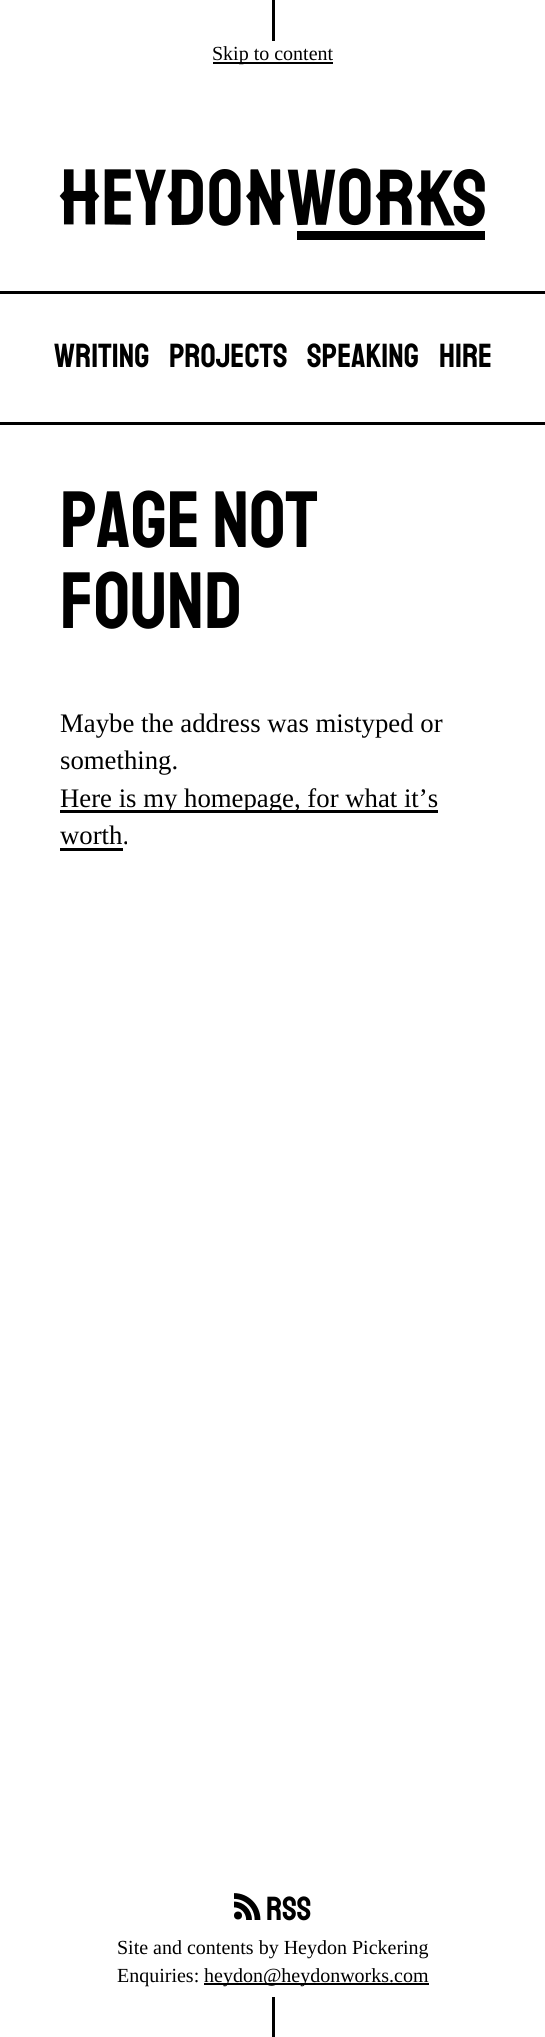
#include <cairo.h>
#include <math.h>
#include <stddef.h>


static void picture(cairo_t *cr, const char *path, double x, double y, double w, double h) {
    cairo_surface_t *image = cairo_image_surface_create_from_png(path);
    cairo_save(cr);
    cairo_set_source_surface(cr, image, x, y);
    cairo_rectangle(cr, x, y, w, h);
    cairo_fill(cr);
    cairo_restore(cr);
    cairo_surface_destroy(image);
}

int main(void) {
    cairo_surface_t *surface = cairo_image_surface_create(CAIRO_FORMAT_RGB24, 545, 2037);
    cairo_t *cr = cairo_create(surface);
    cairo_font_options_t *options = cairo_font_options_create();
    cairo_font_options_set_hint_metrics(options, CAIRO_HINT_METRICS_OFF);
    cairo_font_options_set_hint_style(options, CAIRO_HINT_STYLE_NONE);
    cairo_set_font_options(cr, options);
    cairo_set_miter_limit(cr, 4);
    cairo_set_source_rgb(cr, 1, 1, 1);
    cairo_paint(cr);
    cairo_set_source_rgb(cr, 0, 0, 0);
    cairo_rectangle(cr, 272, 0, 3, 41);
    cairo_fill(cr);
    cairo_rectangle(cr, 213, 62, 120, 2);
    cairo_fill(cr);
    cairo_select_font_face(cr, "Liberation Serif", CAIRO_FONT_SLANT_NORMAL, CAIRO_FONT_WEIGHT_NORMAL);
    cairo_set_font_size(cr, 20);
    cairo_move_to(cr, 212, 60);
    cairo_show_text(cr, "Skip to content");
    picture(cr, "img1.png", 59, 168, 426, 72);
    cairo_rectangle(cr, 0, 422, 545, 3);
    cairo_fill(cr);
    cairo_save(cr);
    cairo_rectangle(cr, 0, 129, 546, 293);
    cairo_clip(cr);
    cairo_rectangle(cr, -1.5, 292.5, 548, 131);
    cairo_set_line_width(cr, 3);
    cairo_stroke(cr);
    cairo_restore(cr);
    cairo_select_font_face(cr, "Staatliches", CAIRO_FONT_SLANT_NORMAL, CAIRO_FONT_WEIGHT_NORMAL);
    cairo_set_font_size(cr, 33.5);
    cairo_move_to(cr, 54, 367);
    cairo_show_text(cr, "Writing");
    cairo_move_to(cr, 169, 367);
    cairo_show_text(cr, "Projects");
    cairo_move_to(cr, 307, 367);
    cairo_show_text(cr, "Speaking");
    cairo_move_to(cr, 439, 367);
    cairo_show_text(cr, "Hire");
    cairo_set_font_size(cr, 80);
    cairo_move_to(cr, 60, 547);
    cairo_show_text(cr, "Page not");
    cairo_move_to(cr, 60, 628);
    cairo_show_text(cr, "found");
    cairo_select_font_face(cr, "Liberation Serif", CAIRO_FONT_SLANT_NORMAL, CAIRO_FONT_WEIGHT_NORMAL);
    cairo_set_font_size(cr, 26.75);
    cairo_move_to(cr, 60, 732);
    cairo_show_text(cr, "Maybe the address was mistyped or");
    cairo_move_to(cr, 60, 769);
    cairo_show_text(cr, "something.");
    cairo_rectangle(cr, 60, 810, 378, 3);
    cairo_fill(cr);
    cairo_move_to(cr, 60, 807);
    cairo_show_text(cr, "Here is my homepage, for what it’s");
    cairo_move_to(cr, 60, 844);
    cairo_show_text(cr, "worth.");
    cairo_rectangle(cr, 60, 848, 63, 3);
    cairo_fill(cr);
    cairo_arc(cr, 238, 1915.5, 4, 0, 2 * M_PI);
    cairo_fill(cr);
    cairo_save(cr);
    cairo_rectangle(cr, 234, 1893, 27, 27);
    cairo_clip(cr);
    cairo_arc(cr, 234, 1919.5, 15, 0, 2 * M_PI);
    cairo_set_line_width(cr, 5.8);
    cairo_stroke(cr);
    cairo_arc(cr, 234, 1919.5, 23.5, 0, 2 * M_PI);
    cairo_stroke(cr);
    cairo_restore(cr);
    cairo_select_font_face(cr, "Staatliches", CAIRO_FONT_SLANT_NORMAL, CAIRO_FONT_WEIGHT_NORMAL);
    cairo_set_font_size(cr, 33.5);
    cairo_move_to(cr, 266, 1920);
    cairo_show_text(cr, "RSS");
    cairo_select_font_face(cr, "Liberation Serif", CAIRO_FONT_SLANT_NORMAL, CAIRO_FONT_WEIGHT_NORMAL);
    cairo_set_font_size(cr, 20);
    cairo_move_to(cr, 117, 1954);
    cairo_show_text(cr, "Site and contents by Heydon Pickering");
    cairo_move_to(cr, 117, 1982);
    cairo_show_text(cr, "Enquiries:");
    cairo_rectangle(cr, 204, 1983, 225, 2);
    cairo_fill(cr);
    cairo_move_to(cr, 204, 1982);
    cairo_show_text(cr, "heydon@heydonworks.com");
    cairo_rectangle(cr, 272, 1997, 3, 40);
    cairo_fill(cr);
    cairo_surface_write_to_png(surface, "page.png");
    cairo_font_options_destroy(options);
    cairo_destroy(cr);
    cairo_surface_destroy(surface);
    return 0;
}
